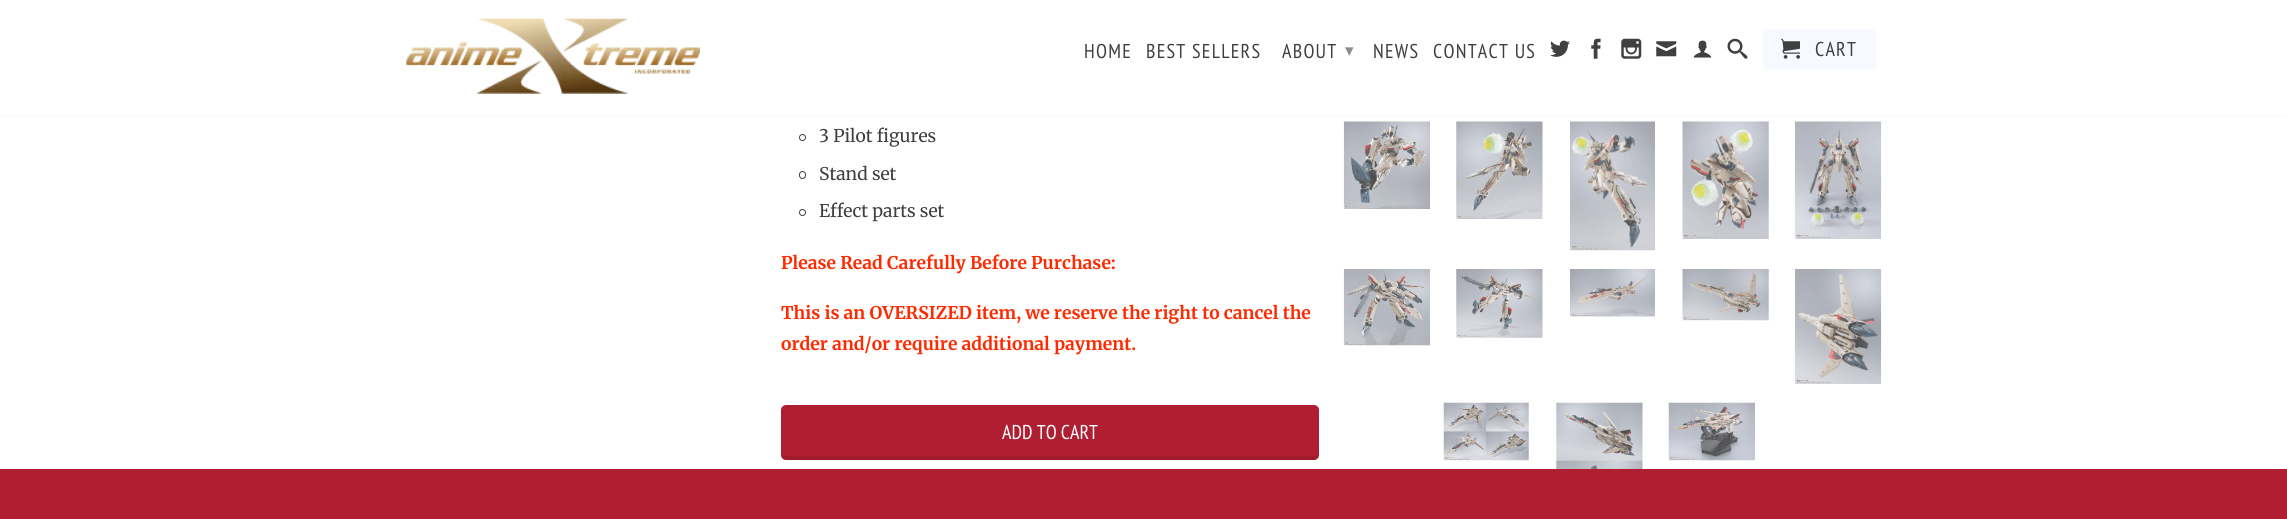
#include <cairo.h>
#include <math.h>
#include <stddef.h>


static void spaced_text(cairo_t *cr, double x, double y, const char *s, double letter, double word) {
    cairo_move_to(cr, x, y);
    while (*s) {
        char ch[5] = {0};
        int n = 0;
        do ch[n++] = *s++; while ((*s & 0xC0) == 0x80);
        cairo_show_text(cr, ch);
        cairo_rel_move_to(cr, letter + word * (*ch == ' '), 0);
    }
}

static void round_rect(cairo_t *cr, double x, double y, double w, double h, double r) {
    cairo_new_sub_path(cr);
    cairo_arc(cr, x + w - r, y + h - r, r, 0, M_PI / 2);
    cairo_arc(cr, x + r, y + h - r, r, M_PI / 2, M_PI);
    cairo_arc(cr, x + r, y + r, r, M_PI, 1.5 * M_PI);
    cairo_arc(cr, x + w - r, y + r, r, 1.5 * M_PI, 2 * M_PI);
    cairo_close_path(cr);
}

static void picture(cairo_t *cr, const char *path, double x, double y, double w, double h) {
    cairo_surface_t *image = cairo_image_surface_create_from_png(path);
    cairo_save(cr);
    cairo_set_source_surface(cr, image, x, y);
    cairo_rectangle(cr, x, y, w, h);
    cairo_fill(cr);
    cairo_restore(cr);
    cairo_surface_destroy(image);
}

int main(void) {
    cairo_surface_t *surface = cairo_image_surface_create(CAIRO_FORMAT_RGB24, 2287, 519);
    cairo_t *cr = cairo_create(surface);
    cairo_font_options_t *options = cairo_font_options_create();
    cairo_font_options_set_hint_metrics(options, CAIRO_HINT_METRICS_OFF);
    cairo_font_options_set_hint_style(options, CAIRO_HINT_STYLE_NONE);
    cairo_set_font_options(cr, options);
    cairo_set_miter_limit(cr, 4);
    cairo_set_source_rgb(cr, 1, 1, 1);
    cairo_paint(cr);
    cairo_set_source_rgb(cr, 0.98, 0.98, 0.98);
    cairo_rectangle(cr, 0, 116, 2287, 1);
    cairo_fill(cr);
    picture(cr, "img1.png", 406, 18, 294, 76);
    cairo_select_font_face(cr, "PT Sans Narrow", CAIRO_FONT_SLANT_NORMAL, CAIRO_FONT_WEIGHT_NORMAL);
    cairo_set_font_size(cr, 20);
    cairo_set_source_rgb(cr, 0.251, 0.251, 0.251);
    spaced_text(cr, 1084, 58, "HOME", 1.25, 0);
    spaced_text(cr, 1146, 58, "BEST SELLERS", 1.25, 0);
    spaced_text(cr, 1282, 58, "ABOUT", 1.25, 0);
    cairo_select_font_face(cr, "DejaVu Sans", CAIRO_FONT_SLANT_NORMAL, CAIRO_FONT_WEIGHT_NORMAL);
    cairo_set_font_size(cr, 17);
    cairo_set_source_rgb(cr, 0.549, 0.549, 0.549);
    spaced_text(cr, 1345, 56, "▾", 1.25, 0);
    cairo_select_font_face(cr, "PT Sans Narrow", CAIRO_FONT_SLANT_NORMAL, CAIRO_FONT_WEIGHT_NORMAL);
    cairo_set_font_size(cr, 20);
    cairo_set_source_rgb(cr, 0.251, 0.251, 0.251);
    spaced_text(cr, 1373, 58, "NEWS", 1.25, 0);
    spaced_text(cr, 1433, 58, "CONTACT US", 1.25, 0);
    picture(cr, "img2.png", 1550, 40, 20, 17);
    picture(cr, "img3.png", 1591, 38, 10, 21);
    picture(cr, "img4.png", 1621, 38, 21, 21);
    picture(cr, "img5.png", 1656, 41, 21, 16);
    picture(cr, "img6.png", 1693, 40, 19, 18);
    picture(cr, "img7.png", 1727, 38, 21, 21);
    cairo_set_source_rgb(cr, 0.961, 0.973, 1);
    round_rect(cr, 1763, 29, 113, 41, 5);
    cairo_fill(cr);
    picture(cr, "img8.png", 1781, 38, 19, 21);
    cairo_set_source_rgb(cr, 0.251, 0.251, 0.251);
    spaced_text(cr, 1815, 56, "CART", 1.25, 0);
    cairo_new_path(cr);
    cairo_arc(cr, 802.5, 137.5, 3, 0, 2 * M_PI);
    cairo_set_line_width(cr, 1);
    cairo_stroke(cr);
    cairo_select_font_face(cr, "Merriweather", CAIRO_FONT_SLANT_NORMAL, CAIRO_FONT_WEIGHT_NORMAL);
    cairo_set_font_size(cr, 17.5);
    cairo_move_to(cr, 819, 142);
    cairo_show_text(cr, "3 Pilot figures");
    round_rect(cr, 799.5, 171.5, 6, 7, 3);
    cairo_stroke(cr);
    cairo_move_to(cr, 819, 180);
    cairo_show_text(cr, "Stand set");
    cairo_new_path(cr);
    cairo_arc(cr, 802.5, 212.5, 3, 0, 2 * M_PI);
    cairo_stroke(cr);
    cairo_move_to(cr, 819, 217);
    cairo_show_text(cr, "Effect parts set");
    cairo_select_font_face(cr, "Merriweather", CAIRO_FONT_SLANT_NORMAL, CAIRO_FONT_WEIGHT_BOLD);
    cairo_set_source_rgb(cr, 1, 0.165, 0);
    cairo_move_to(cr, 781, 269);
    cairo_show_text(cr, "Please Read Carefully Before Purchase:");
    cairo_move_to(cr, 781, 319);
    cairo_show_text(cr, "This is an OVERSIZED item, we reserve the right to cancel the");
    cairo_move_to(cr, 781, 350);
    cairo_show_text(cr, "order and/or require additional payment.");
    cairo_set_source_rgb(cr, 0.686, 0.122, 0.192);
    round_rect(cr, 781, 405, 538, 55, 5);
    cairo_fill(cr);
    cairo_set_source_rgba(cr, 0, 0, 0, 0.1);
    cairo_new_path(cr);
    cairo_move_to(cr, 781, 451);
    cairo_line_to(cr, 781, 455);
    cairo_curve_to(cr, 781, 458, 783, 460, 786, 460);
    cairo_line_to(cr, 1314, 460);
    cairo_curve_to(cr, 1317, 460, 1319, 458, 1319, 455);
    cairo_line_to(cr, 1319, 451);
    cairo_curve_to(cr, 1319, 454, 1317, 456, 1314, 456);
    cairo_line_to(cr, 786, 456);
    cairo_curve_to(cr, 783, 456, 781, 454, 781, 451);
    cairo_close_path(cr);
    cairo_fill(cr);
    cairo_select_font_face(cr, "PT Sans Narrow", CAIRO_FONT_SLANT_NORMAL, CAIRO_FONT_WEIGHT_NORMAL);
    cairo_set_font_size(cr, 20);
    cairo_set_source_rgb(cr, 1, 1, 1);
    cairo_move_to(cr, 1002, 439);
    cairo_show_text(cr, "ADD TO CART");
    picture(cr, "img9.png", 1343, 121, 87, 88);
    picture(cr, "img10.png", 1456, 121, 87, 98);
    picture(cr, "img11.png", 1570, 121, 85, 130);
    picture(cr, "img12.png", 1682, 121, 87, 118);
    picture(cr, "img13.png", 1795, 121, 87, 118);
    picture(cr, "img14.png", 1343, 269, 87, 77);
    picture(cr, "img15.png", 1456, 269, 87, 69);
    picture(cr, "img16.png", 1570, 269, 85, 48);
    picture(cr, "img17.png", 1682, 269, 87, 52);
    picture(cr, "img18.png", 1795, 269, 87, 115);
    picture(cr, "img19.png", 1443, 402, 86, 59);
    picture(cr, "img20.png", 1556, 402, 87, 67);
    picture(cr, "img21.png", 1668, 402, 87, 59);
    cairo_set_source_rgb(cr, 0.686, 0.122, 0.192);
    cairo_rectangle(cr, 0, 469, 2287, 50);
    cairo_fill(cr);
    cairo_surface_write_to_png(surface, "page.png");
    cairo_font_options_destroy(options);
    cairo_destroy(cr);
    cairo_surface_destroy(surface);
    return 0;
}
